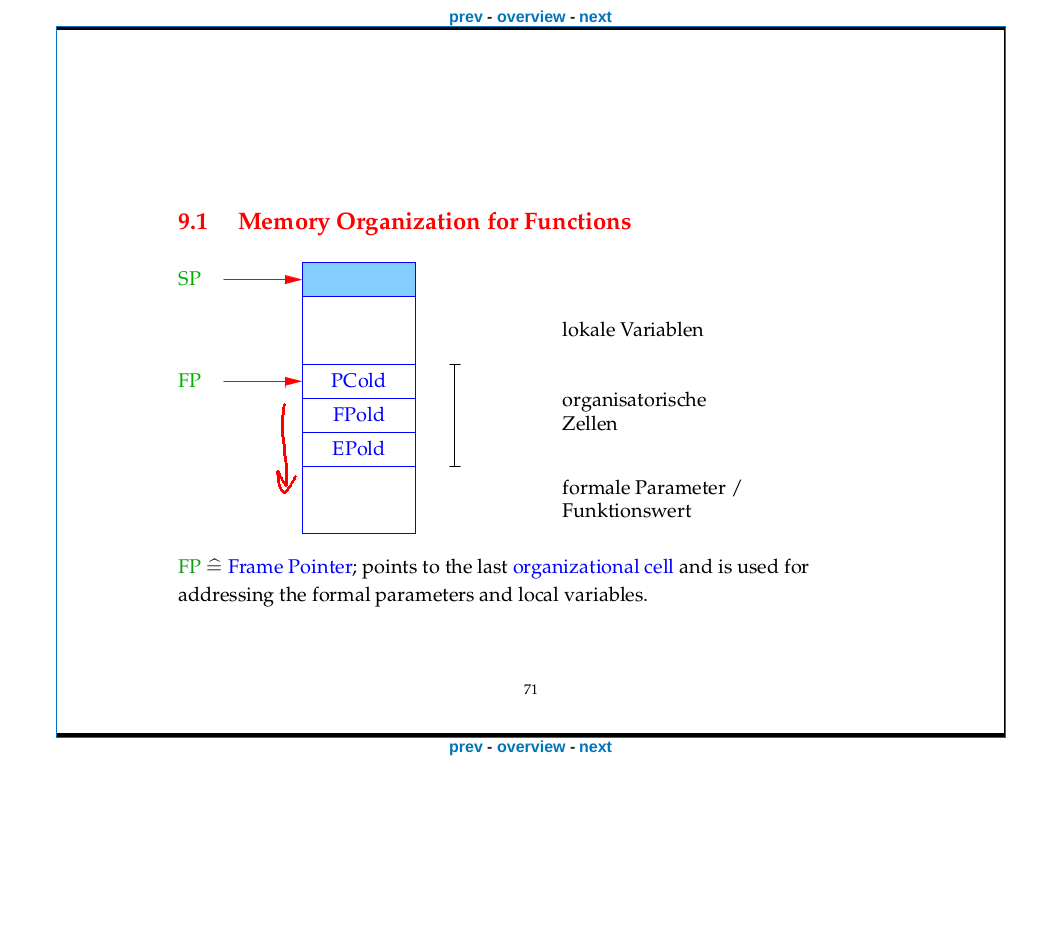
#include <cairo.h>
#include <math.h>
#include <stddef.h>


static void picture(cairo_t *cr, const char *path, double x, double y, double w, double h) {
    cairo_surface_t *image = cairo_image_surface_create_from_png(path);
    cairo_save(cr);
    cairo_set_source_surface(cr, image, x, y);
    cairo_rectangle(cr, x, y, w, h);
    cairo_fill(cr);
    cairo_restore(cr);
    cairo_surface_destroy(image);
}

int main(void) {
    cairo_surface_t *surface = cairo_image_surface_create(CAIRO_FORMAT_RGB24, 1061, 945);
    cairo_t *cr = cairo_create(surface);
    cairo_font_options_t *options = cairo_font_options_create();
    cairo_font_options_set_hint_metrics(options, CAIRO_HINT_METRICS_OFF);
    cairo_font_options_set_hint_style(options, CAIRO_HINT_STYLE_NONE);
    cairo_set_font_options(cr, options);
    cairo_set_miter_limit(cr, 4);
    cairo_set_source_rgb(cr, 1, 1, 1);
    cairo_paint(cr);
    cairo_select_font_face(cr, "Liberation Sans", CAIRO_FONT_SLANT_NORMAL, CAIRO_FONT_WEIGHT_BOLD);
    cairo_set_font_size(cr, 16);
    cairo_set_source_rgb(cr, 0, 0.459, 0.729);
    cairo_move_to(cr, 449, 22);
    cairo_show_text(cr, "prev");
    cairo_rectangle(cr, 56.5, 26.5, 949, 711);
    cairo_set_line_width(cr, 1);
    cairo_stroke(cr);
    cairo_set_source_rgb(cr, 0.133, 0.133, 0.133);
    cairo_move_to(cr, 487, 22);
    cairo_show_text(cr, "-");
    cairo_set_source_rgb(cr, 0, 0.459, 0.729);
    cairo_move_to(cr, 497, 22);
    cairo_show_text(cr, "overview");
    cairo_set_source_rgb(cr, 0.133, 0.133, 0.133);
    cairo_move_to(cr, 570, 22);
    cairo_show_text(cr, "-");
    cairo_set_source_rgb(cr, 0, 0.459, 0.729);
    cairo_move_to(cr, 579, 22);
    cairo_show_text(cr, "next");
    picture(cr, "img1.png", 57, 27, 948, 710);
    cairo_move_to(cr, 449, 752);
    cairo_show_text(cr, "prev");
    cairo_set_source_rgb(cr, 0.133, 0.133, 0.133);
    cairo_move_to(cr, 487, 752);
    cairo_show_text(cr, "-");
    cairo_set_source_rgb(cr, 0, 0.459, 0.729);
    cairo_move_to(cr, 497, 752);
    cairo_show_text(cr, "overview");
    cairo_set_source_rgb(cr, 0.133, 0.133, 0.133);
    cairo_move_to(cr, 570, 752);
    cairo_show_text(cr, "-");
    cairo_set_source_rgb(cr, 0, 0.459, 0.729);
    cairo_move_to(cr, 579, 752);
    cairo_show_text(cr, "next");
    cairo_surface_write_to_png(surface, "page.png");
    cairo_font_options_destroy(options);
    cairo_destroy(cr);
    cairo_surface_destroy(surface);
    return 0;
}
